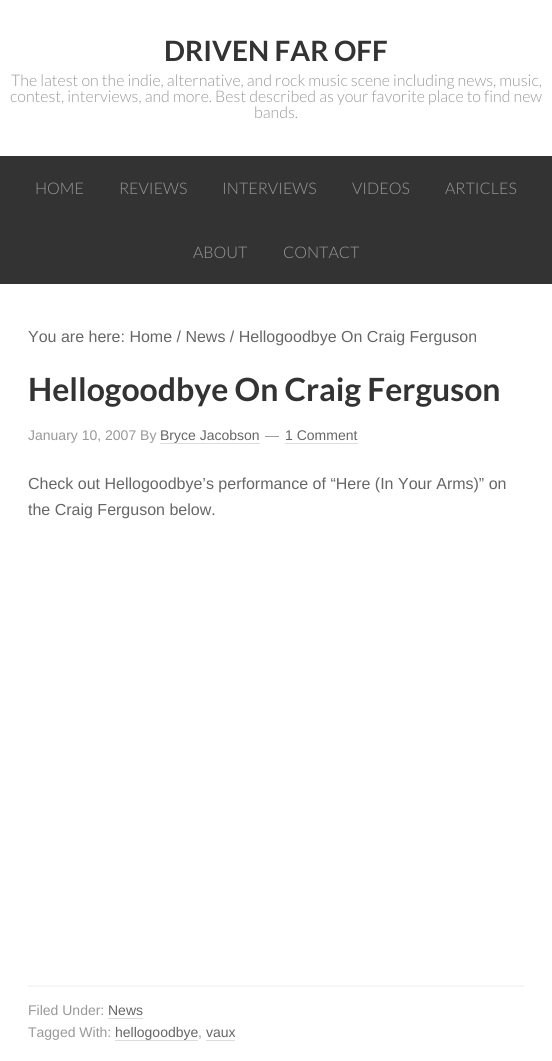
#include <cairo.h>
#include <math.h>
#include <stddef.h>


int main(void) {
    cairo_surface_t *surface = cairo_image_surface_create(CAIRO_FORMAT_RGB24, 552, 1061);
    cairo_t *cr = cairo_create(surface);
    cairo_font_options_t *options = cairo_font_options_create();
    cairo_font_options_set_hint_metrics(options, CAIRO_HINT_METRICS_OFF);
    cairo_font_options_set_hint_style(options, CAIRO_HINT_STYLE_NONE);
    cairo_set_font_options(cr, options);
    cairo_set_miter_limit(cr, 4);
    cairo_set_source_rgb(cr, 1, 1, 1);
    cairo_paint(cr);
    cairo_select_font_face(cr, "Lato", CAIRO_FONT_SLANT_NORMAL, CAIRO_FONT_WEIGHT_BOLD);
    cairo_set_font_size(cr, 28);
    cairo_set_source_rgb(cr, 0.2, 0.2, 0.2);
    cairo_move_to(cr, 164, 61);
    cairo_show_text(cr, "DRIVEN FAR OFF");
    cairo_select_font_face(cr, "Lato Light", CAIRO_FONT_SLANT_NORMAL, CAIRO_FONT_WEIGHT_NORMAL);
    cairo_set_font_size(cr, 16);
    cairo_set_source_rgb(cr, 0.6, 0.6, 0.6);
    cairo_move_to(cr, 11, 86);
    cairo_show_text(cr, "The latest on the indie, alternative, and rock music scene including news, music,");
    cairo_move_to(cr, 10, 102);
    cairo_show_text(cr, "contest, interviews, and more. Best described as your favorite place to find new");
    cairo_move_to(cr, 254, 118);
    cairo_show_text(cr, "bands.");
    cairo_set_source_rgb(cr, 0.2, 0.2, 0.2);
    cairo_rectangle(cr, 0, 156, 552, 128);
    cairo_fill(cr);
    cairo_set_source_rgb(cr, 0.6, 0.6, 0.6);
    cairo_move_to(cr, 35, 194);
    cairo_show_text(cr, "HOME");
    cairo_move_to(cr, 119, 194);
    cairo_show_text(cr, "REVIEWS");
    cairo_move_to(cr, 222, 194);
    cairo_show_text(cr, "INTERVIEWS");
    cairo_move_to(cr, 352, 194);
    cairo_show_text(cr, "VIDEOS");
    cairo_move_to(cr, 445, 194);
    cairo_show_text(cr, "ARTICLES");
    cairo_move_to(cr, 193, 258);
    cairo_show_text(cr, "ABOUT");
    cairo_move_to(cr, 283, 258);
    cairo_show_text(cr, "CONTACT");
    cairo_select_font_face(cr, "Liberation Sans", CAIRO_FONT_SLANT_NORMAL, CAIRO_FONT_WEIGHT_NORMAL);
    cairo_set_source_rgb(cr, 0.4, 0.4, 0.4);
    cairo_move_to(cr, 28, 342);
    cairo_show_text(cr, "You are here: Home / News / Hellogoodbye On Craig Ferguson");
    cairo_select_font_face(cr, "Lato", CAIRO_FONT_SLANT_NORMAL, CAIRO_FONT_WEIGHT_BOLD);
    cairo_set_font_size(cr, 32);
    cairo_set_source_rgb(cr, 0.2, 0.2, 0.2);
    cairo_move_to(cr, 28, 401);
    cairo_show_text(cr, "Hellogoodbye On Craig Ferguson");
    cairo_select_font_face(cr, "Liberation Sans", CAIRO_FONT_SLANT_NORMAL, CAIRO_FONT_WEIGHT_NORMAL);
    cairo_set_font_size(cr, 14);
    cairo_set_source_rgb(cr, 0.6, 0.6, 0.6);
    cairo_move_to(cr, 28, 440);
    cairo_show_text(cr, "January 10, 2007 By");
    cairo_set_source_rgb(cr, 0.4, 0.4, 0.4);
    cairo_move_to(cr, 160, 440);
    cairo_show_text(cr, "Bryce Jacobson");
    cairo_set_source_rgb(cr, 0.867, 0.867, 0.867);
    cairo_rectangle(cr, 160, 443, 100, 1);
    cairo_fill(cr);
    cairo_set_source_rgb(cr, 0.6, 0.6, 0.6);
    cairo_move_to(cr, 265, 440);
    cairo_show_text(cr, "—");
    cairo_set_source_rgb(cr, 0.4, 0.4, 0.4);
    cairo_move_to(cr, 285, 440);
    cairo_show_text(cr, "1 Comment");
    cairo_set_source_rgb(cr, 0.867, 0.867, 0.867);
    cairo_rectangle(cr, 285, 443, 73, 1);
    cairo_fill(cr);
    cairo_set_font_size(cr, 16);
    cairo_set_source_rgb(cr, 0.4, 0.4, 0.4);
    cairo_move_to(cr, 28, 489);
    cairo_show_text(cr, "Check out Hellogoodbye’s performance of “Here (In Your Arms)” on");
    cairo_move_to(cr, 28, 515);
    cairo_show_text(cr, "the Craig Ferguson below.");
    cairo_set_source_rgb(cr, 0.961, 0.961, 0.961);
    cairo_rectangle(cr, 28, 985, 496, 2);
    cairo_fill(cr);
    cairo_set_font_size(cr, 14);
    cairo_set_source_rgb(cr, 0.6, 0.6, 0.6);
    cairo_move_to(cr, 28, 1015);
    cairo_show_text(cr, "Filed Under:");
    cairo_set_source_rgb(cr, 0.4, 0.4, 0.4);
    cairo_move_to(cr, 108, 1015);
    cairo_show_text(cr, "News");
    cairo_set_source_rgb(cr, 0.867, 0.867, 0.867);
    cairo_rectangle(cr, 108, 1018, 35, 1);
    cairo_fill(cr);
    cairo_set_source_rgb(cr, 0.6, 0.6, 0.6);
    cairo_move_to(cr, 28, 1037);
    cairo_show_text(cr, "Tagged With:");
    cairo_set_source_rgb(cr, 0.4, 0.4, 0.4);
    cairo_move_to(cr, 115, 1037);
    cairo_show_text(cr, "hellogoodbye");
    cairo_set_source_rgb(cr, 0.867, 0.867, 0.867);
    cairo_rectangle(cr, 115, 1040, 83, 1);
    cairo_fill(cr);
    cairo_set_source_rgb(cr, 0.6, 0.6, 0.6);
    cairo_move_to(cr, 198, 1037);
    cairo_show_text(cr, ",");
    cairo_set_source_rgb(cr, 0.4, 0.4, 0.4);
    cairo_move_to(cr, 206, 1037);
    cairo_show_text(cr, "vaux");
    cairo_set_source_rgb(cr, 0.867, 0.867, 0.867);
    cairo_rectangle(cr, 206, 1040, 29, 1);
    cairo_fill(cr);
    cairo_surface_write_to_png(surface, "page.png");
    cairo_font_options_destroy(options);
    cairo_destroy(cr);
    cairo_surface_destroy(surface);
    return 0;
}
